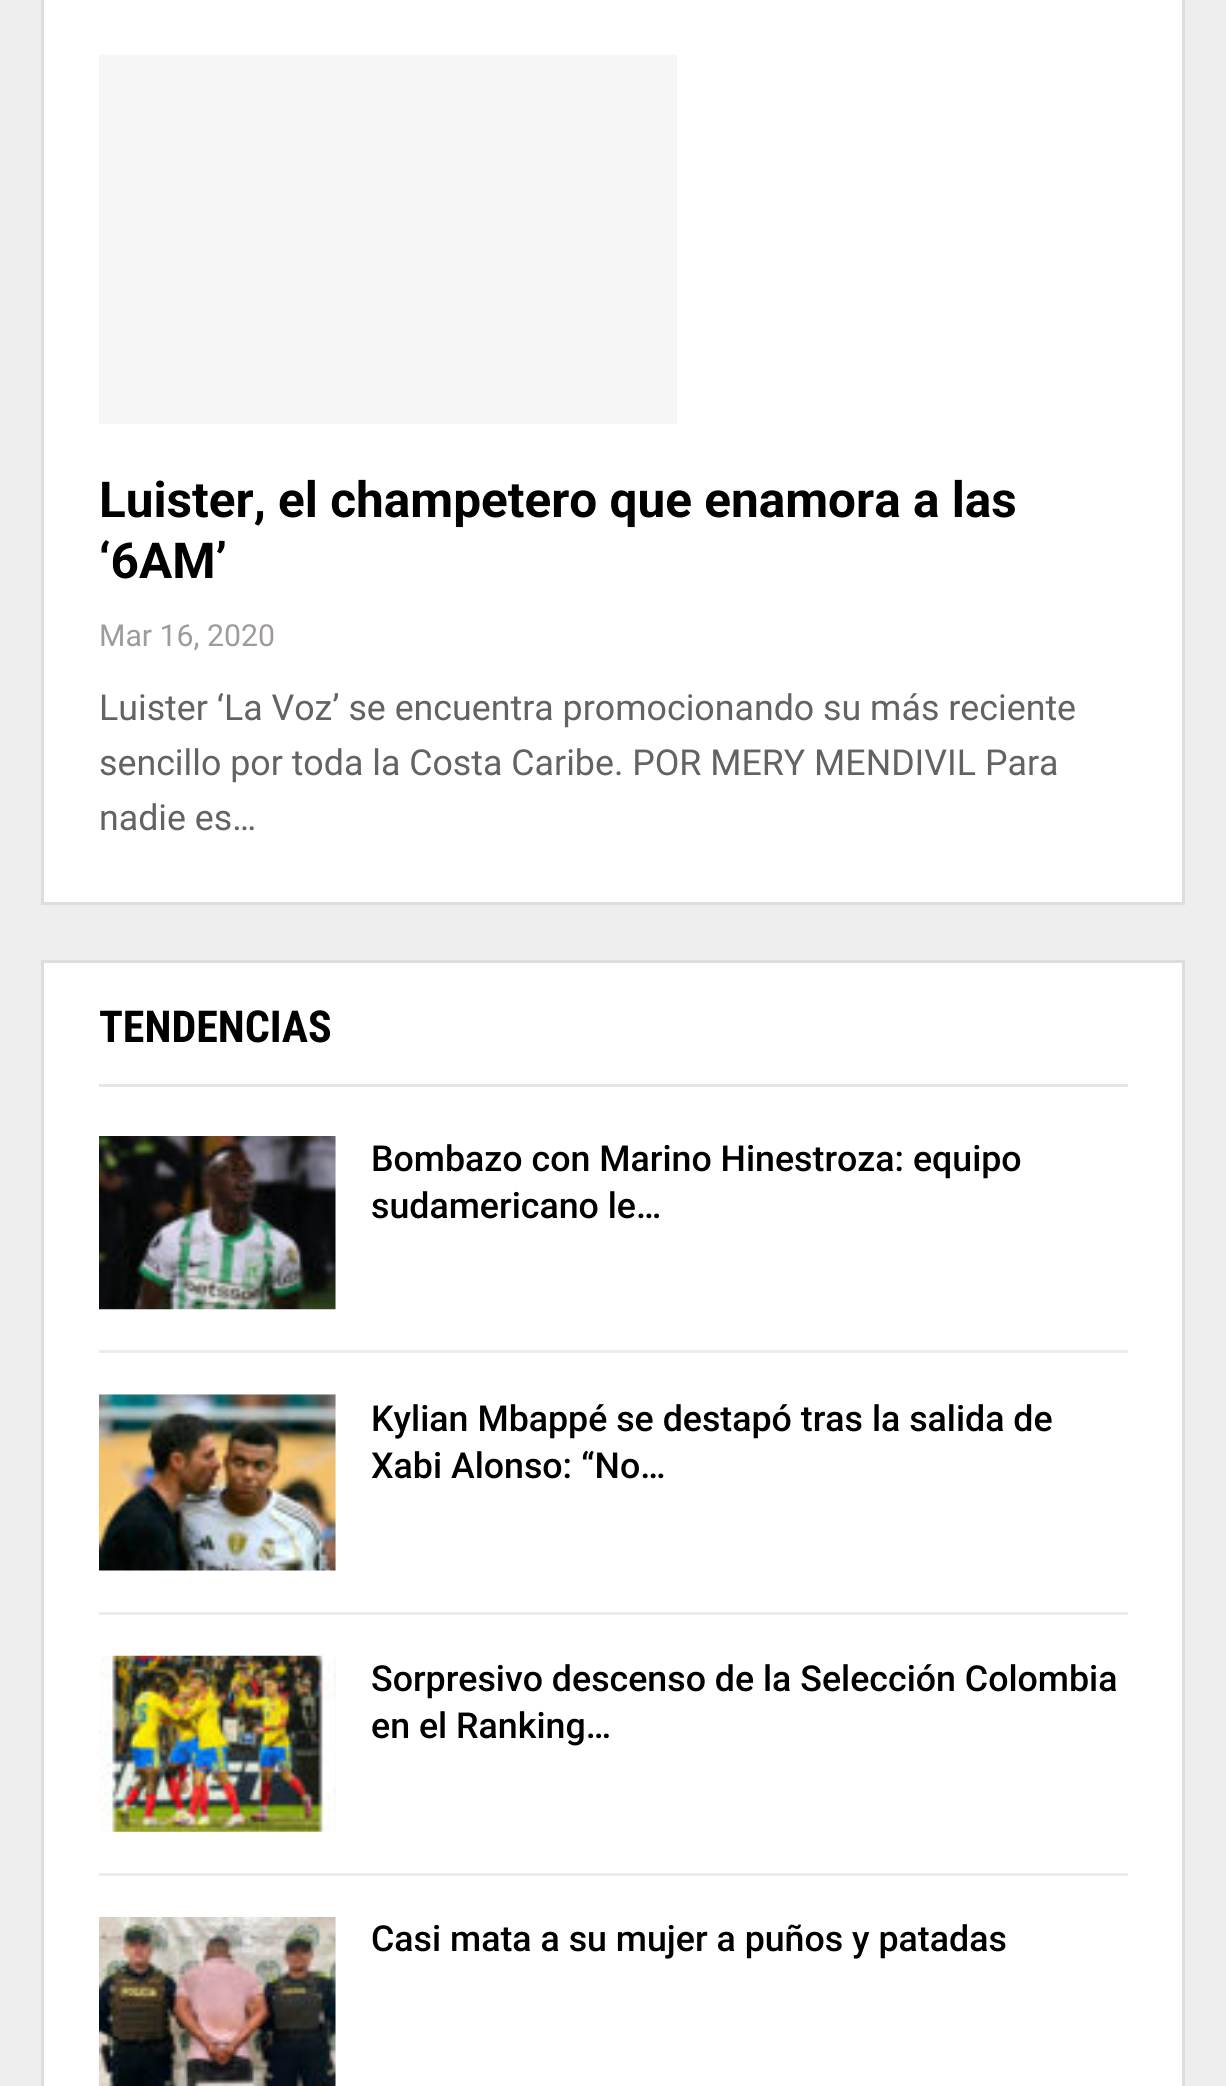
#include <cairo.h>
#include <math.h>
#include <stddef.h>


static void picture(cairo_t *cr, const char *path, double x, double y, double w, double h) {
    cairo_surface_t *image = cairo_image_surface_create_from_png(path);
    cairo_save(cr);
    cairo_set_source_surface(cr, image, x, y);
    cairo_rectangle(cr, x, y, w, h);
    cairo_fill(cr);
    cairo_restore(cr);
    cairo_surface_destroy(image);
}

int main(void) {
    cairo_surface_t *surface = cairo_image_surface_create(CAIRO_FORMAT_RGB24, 1226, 2086);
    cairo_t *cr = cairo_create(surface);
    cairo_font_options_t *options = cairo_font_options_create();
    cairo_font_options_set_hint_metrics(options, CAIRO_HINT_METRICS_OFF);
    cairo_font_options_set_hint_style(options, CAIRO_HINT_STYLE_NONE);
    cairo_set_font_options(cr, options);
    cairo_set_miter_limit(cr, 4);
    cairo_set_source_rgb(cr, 0.933, 0.933, 0.933);
    cairo_paint(cr);
    cairo_set_source_rgb(cr, 1, 1, 1);
    cairo_rectangle(cr, 42.5, -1.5, 1141, 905);
    cairo_fill_preserve(cr);
    cairo_set_source_rgb(cr, 0.867, 0.867, 0.867);
    cairo_set_line_width(cr, 3);
    cairo_stroke(cr);
    cairo_set_source_rgb(cr, 0.961, 0.961, 0.961);
    cairo_rectangle(cr, 99, 55, 578, 369);
    cairo_fill(cr);
    cairo_select_font_face(cr, "Roboto", CAIRO_FONT_SLANT_NORMAL, CAIRO_FONT_WEIGHT_BOLD);
    cairo_set_font_size(cr, 49.5);
    cairo_set_source_rgb(cr, 0, 0, 0);
    cairo_move_to(cr, 99, 517);
    cairo_show_text(cr, "Luister, el champetero que enamora a las");
    cairo_move_to(cr, 99, 578);
    cairo_show_text(cr, "‘6AM’");
    cairo_select_font_face(cr, "Roboto", CAIRO_FONT_SLANT_NORMAL, CAIRO_FONT_WEIGHT_NORMAL);
    cairo_set_font_size(cr, 30.25);
    cairo_set_source_rgb(cr, 0.627, 0.608, 0.608);
    cairo_move_to(cr, 99, 646);
    cairo_show_text(cr, "Mar 16, 2020");
    cairo_set_font_size(cr, 35.75);
    cairo_set_source_rgb(cr, 0.388, 0.388, 0.388);
    cairo_move_to(cr, 99, 720);
    cairo_show_text(cr, "Luister ‘La Voz’ se encuentra promocionando su más reciente");
    cairo_move_to(cr, 99, 775);
    cairo_show_text(cr, "sencillo por toda la Costa Caribe. POR MERY MENDIVIL Para");
    cairo_move_to(cr, 99, 830);
    cairo_show_text(cr, "nadie es…");
    cairo_set_source_rgb(cr, 1, 1, 1);
    cairo_rectangle(cr, 42.5, 961.5, 1141, 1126);
    cairo_fill_preserve(cr);
    cairo_set_source_rgb(cr, 0.867, 0.867, 0.867);
    cairo_stroke(cr);
    cairo_select_font_face(cr, "Roboto Condensed", CAIRO_FONT_SLANT_NORMAL, CAIRO_FONT_WEIGHT_BOLD);
    cairo_set_font_size(cr, 44);
    cairo_set_source_rgb(cr, 0, 0, 0);
    cairo_move_to(cr, 99, 1042);
    cairo_show_text(cr, "TENDENCIAS");
    cairo_set_source_rgb(cr, 0.902, 0.902, 0.902);
    cairo_rectangle(cr, 99, 1084, 1029, 3);
    cairo_fill(cr);
    cairo_set_source_rgb(cr, 0.922, 0.922, 0.922);
    cairo_rectangle(cr, 99, 1350, 1029, 3);
    cairo_fill(cr);
    cairo_set_source_rgb(cr, 0.961, 0.961, 0.961);
    cairo_rectangle(cr, 335, 1136, 1, 173);
    cairo_fill(cr);
    picture(cr, "img1.png", 99, 1136, 237, 174);
    cairo_select_font_face(cr, "Roboto Medium", CAIRO_FONT_SLANT_NORMAL, CAIRO_FONT_WEIGHT_NORMAL);
    cairo_set_font_size(cr, 35.75);
    cairo_set_source_rgb(cr, 0, 0, 0);
    cairo_move_to(cr, 371, 1171);
    cairo_show_text(cr, "Bombazo con Marino Hinestroza: equipo");
    cairo_move_to(cr, 371, 1218);
    cairo_show_text(cr, "sudamericano le…");
    cairo_set_source_rgb(cr, 0.922, 0.922, 0.922);
    cairo_rectangle(cr, 99, 1612, 1029, 3);
    cairo_fill(cr);
    cairo_set_source_rgb(cr, 0.961, 0.961, 0.961);
    cairo_rectangle(cr, 99, 1394, 237, 176);
    cairo_fill(cr);
    picture(cr, "img2.png", 99, 1394, 237, 177);
    cairo_set_source_rgb(cr, 0, 0, 0);
    cairo_move_to(cr, 371, 1431);
    cairo_show_text(cr, "Kylian Mbappé se destapó tras la salida de");
    cairo_move_to(cr, 371, 1478);
    cairo_show_text(cr, "Xabi Alonso: “No…");
    cairo_set_source_rgb(cr, 0.922, 0.922, 0.922);
    cairo_rectangle(cr, 99, 1873, 1029, 3);
    cairo_fill(cr);
    cairo_set_source_rgb(cr, 0.961, 0.961, 0.961);
    cairo_rectangle(cr, 99, 1656, 237, 176);
    cairo_fill(cr);
    picture(cr, "img3.png", 99, 1655, 237, 177);
    cairo_set_source_rgb(cr, 0, 0, 0);
    cairo_move_to(cr, 371, 1691);
    cairo_show_text(cr, "Sorpresivo descenso de la Selección Colombia");
    cairo_move_to(cr, 371, 1738);
    cairo_show_text(cr, "en el Ranking…");
    cairo_set_source_rgb(cr, 0.961, 0.961, 0.961);
    cairo_rectangle(cr, 335, 1917, 1, 169);
    cairo_fill(cr);
    picture(cr, "img4.png", 99, 1917, 237, 169);
    cairo_set_source_rgb(cr, 0, 0, 0);
    cairo_move_to(cr, 371, 1951);
    cairo_show_text(cr, "Casi mata a su mujer a puños y patadas");
    cairo_surface_write_to_png(surface, "page.png");
    cairo_font_options_destroy(options);
    cairo_destroy(cr);
    cairo_surface_destroy(surface);
    return 0;
}
